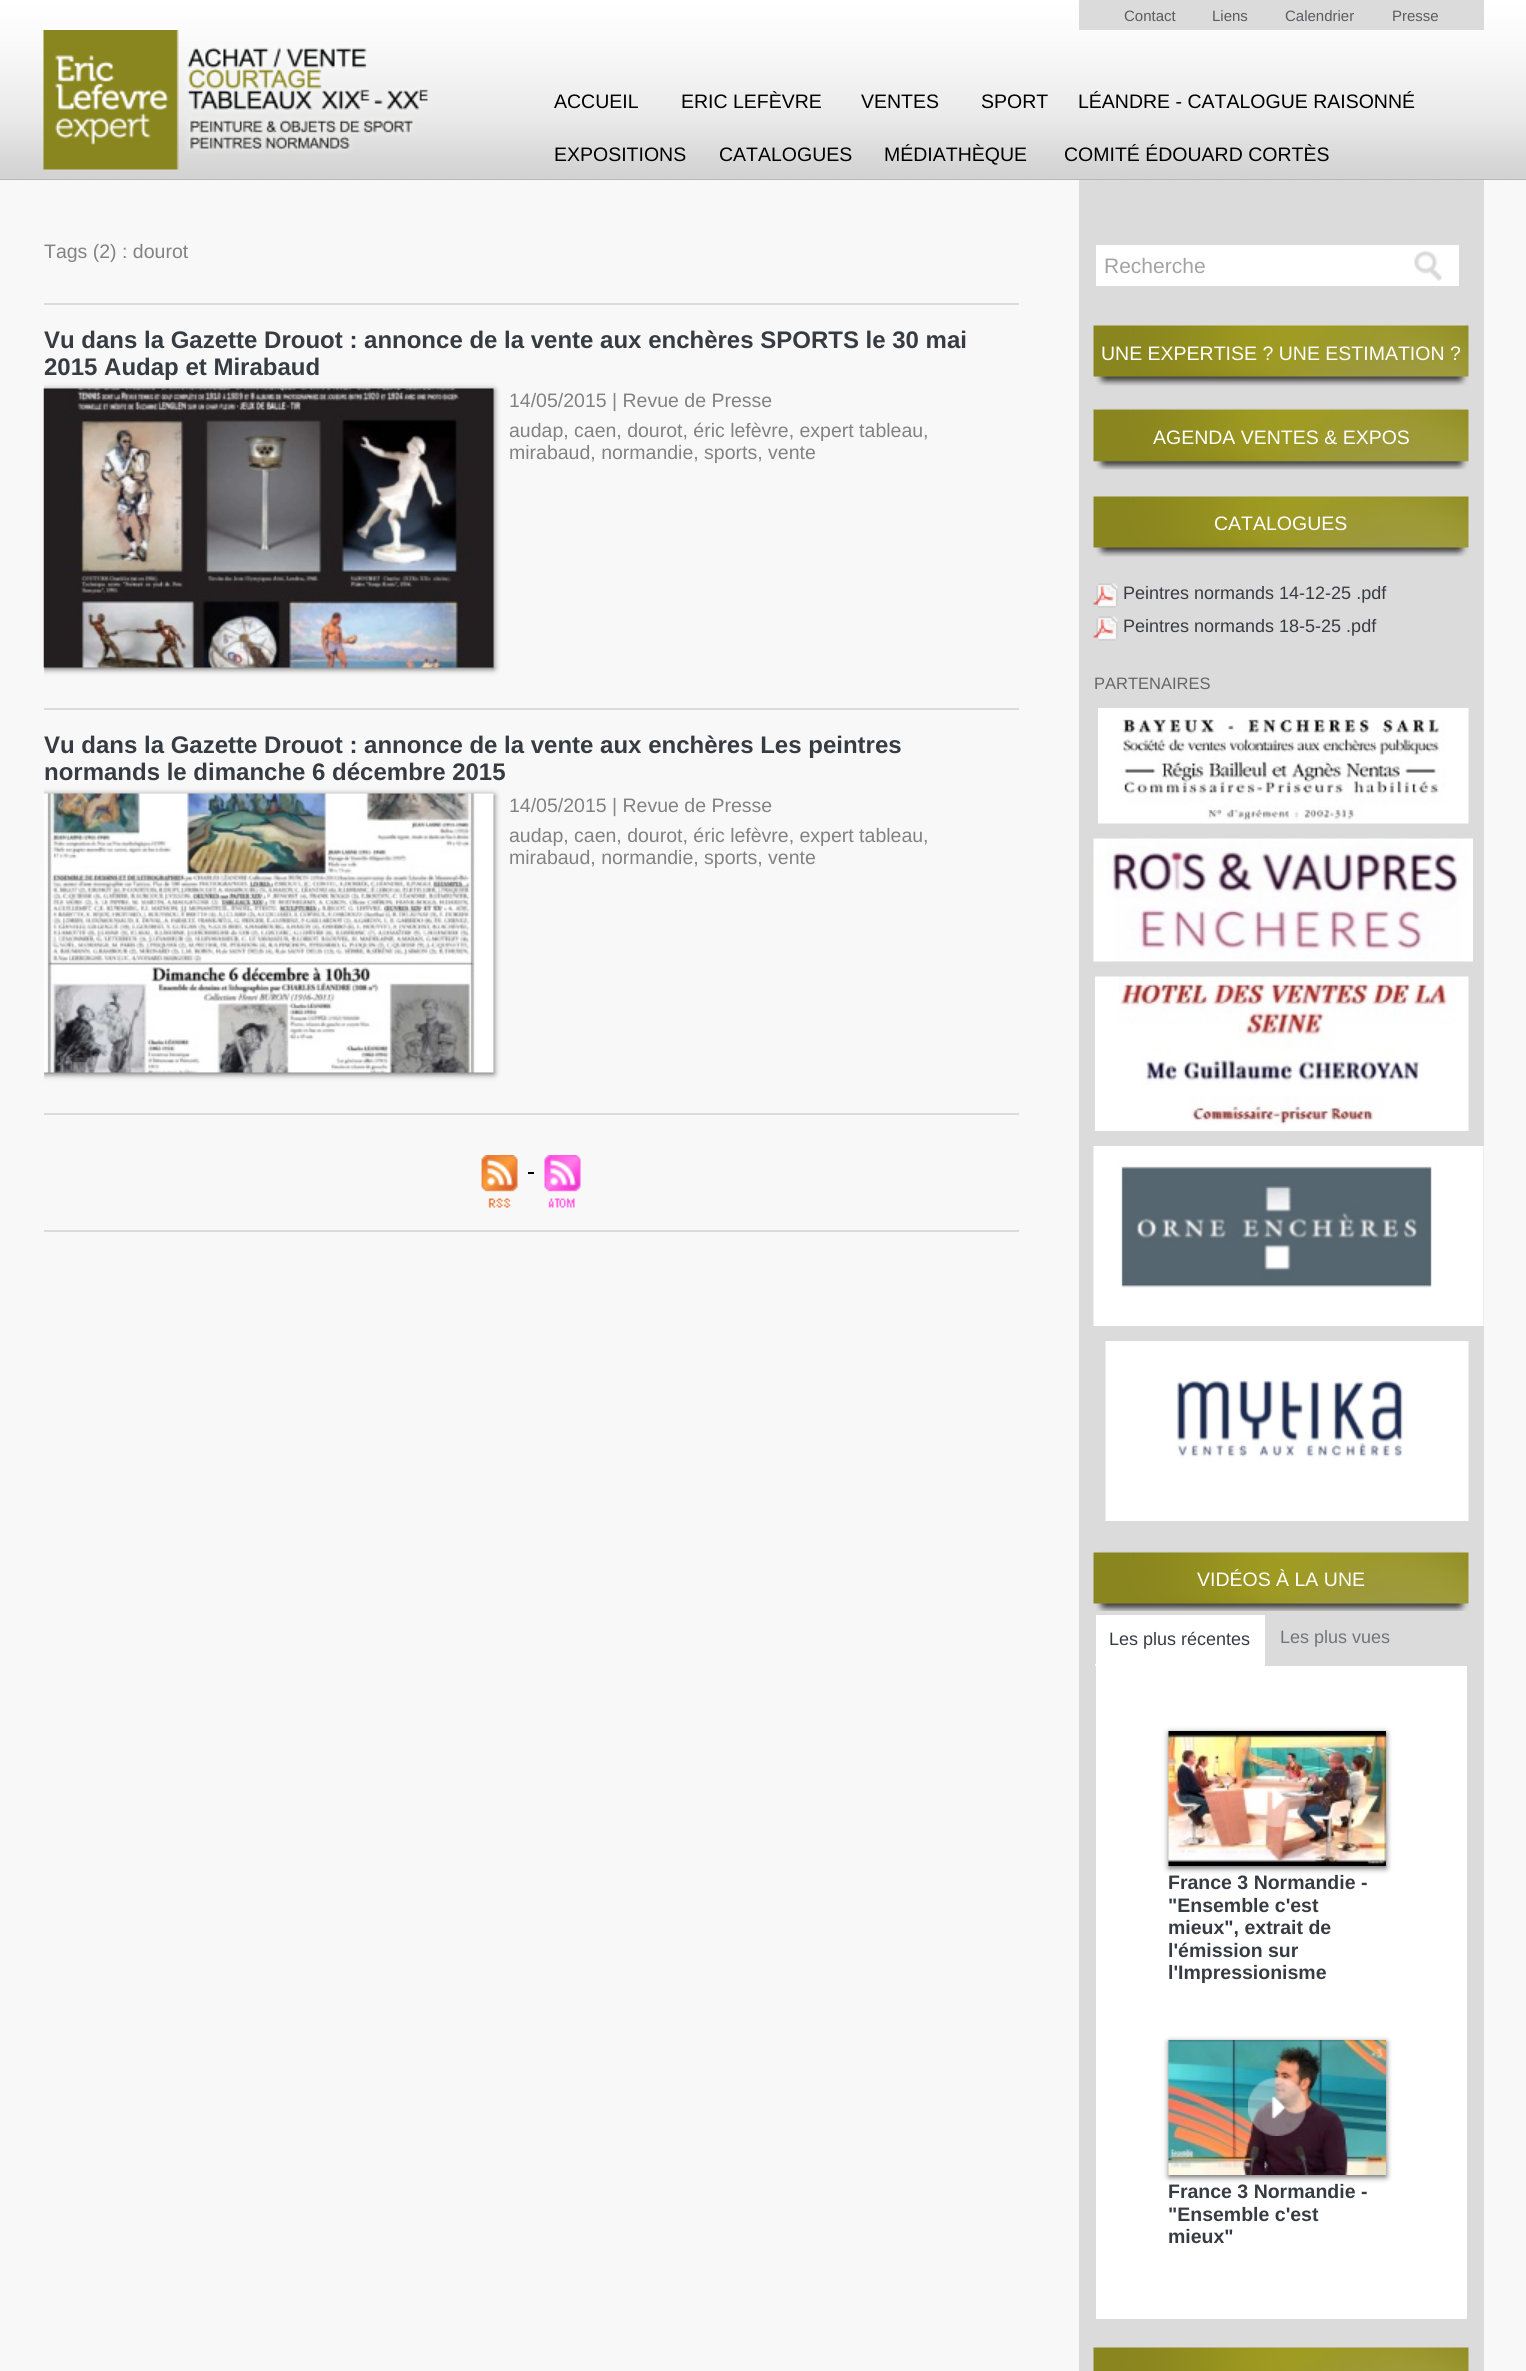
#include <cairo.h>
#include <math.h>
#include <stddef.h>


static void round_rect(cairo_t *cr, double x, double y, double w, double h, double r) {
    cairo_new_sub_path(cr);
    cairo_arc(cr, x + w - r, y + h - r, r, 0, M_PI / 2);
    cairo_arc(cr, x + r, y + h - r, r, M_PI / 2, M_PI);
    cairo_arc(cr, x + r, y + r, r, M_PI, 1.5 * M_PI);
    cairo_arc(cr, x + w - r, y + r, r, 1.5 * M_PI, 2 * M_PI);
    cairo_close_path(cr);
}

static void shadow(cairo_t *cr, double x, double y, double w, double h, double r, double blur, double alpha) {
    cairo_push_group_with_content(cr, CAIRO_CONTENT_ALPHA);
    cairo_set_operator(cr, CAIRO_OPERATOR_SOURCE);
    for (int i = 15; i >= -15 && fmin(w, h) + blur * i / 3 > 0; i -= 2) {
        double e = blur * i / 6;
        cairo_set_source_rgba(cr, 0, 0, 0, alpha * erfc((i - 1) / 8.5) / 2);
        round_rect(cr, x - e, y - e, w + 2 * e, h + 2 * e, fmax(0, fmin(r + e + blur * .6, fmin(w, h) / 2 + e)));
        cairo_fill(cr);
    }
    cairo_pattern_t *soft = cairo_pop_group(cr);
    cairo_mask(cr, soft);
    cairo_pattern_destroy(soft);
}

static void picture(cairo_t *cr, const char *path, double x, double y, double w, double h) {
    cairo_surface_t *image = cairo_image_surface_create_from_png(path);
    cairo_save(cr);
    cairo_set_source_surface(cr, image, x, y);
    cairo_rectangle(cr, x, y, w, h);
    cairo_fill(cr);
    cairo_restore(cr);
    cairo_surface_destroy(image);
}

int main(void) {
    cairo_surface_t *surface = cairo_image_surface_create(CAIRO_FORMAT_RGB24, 1526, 2371);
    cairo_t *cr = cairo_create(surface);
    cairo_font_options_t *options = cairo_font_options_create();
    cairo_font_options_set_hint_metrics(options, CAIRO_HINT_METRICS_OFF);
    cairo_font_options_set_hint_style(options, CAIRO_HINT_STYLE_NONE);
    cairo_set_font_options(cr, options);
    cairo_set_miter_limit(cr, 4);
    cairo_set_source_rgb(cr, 0.969, 0.969, 0.969);
    cairo_paint(cr);
    picture(cr, "img1.png", 0, 0, 1526, 180);
    cairo_set_source_rgb(cr, 0.859, 0.859, 0.859);
    cairo_rectangle(cr, 1079, 0, 405, 30);
    cairo_fill(cr);
    cairo_select_font_face(cr, "Liberation Sans", CAIRO_FONT_SLANT_NORMAL, CAIRO_FONT_WEIGHT_NORMAL);
    cairo_set_font_size(cr, 15);
    cairo_set_source_rgb(cr, 0.345, 0.361, 0.38);
    cairo_move_to(cr, 1124, 21);
    cairo_show_text(cr, "Contact");
    cairo_move_to(cr, 1212, 21);
    cairo_show_text(cr, "Liens");
    cairo_move_to(cr, 1285, 21);
    cairo_show_text(cr, "Calendrier");
    cairo_move_to(cr, 1392, 21);
    cairo_show_text(cr, "Presse");
    picture(cr, "img2.png", 43, 30, 385, 140);
    cairo_set_font_size(cr, 19.5);
    cairo_set_source_rgb(cr, 0, 0, 0);
    cairo_move_to(cr, 554, 108);
    cairo_show_text(cr, "ACCUEIL");
    cairo_move_to(cr, 681, 108);
    cairo_show_text(cr, "ERIC LEFÈVRE");
    cairo_move_to(cr, 861, 108);
    cairo_show_text(cr, "VENTES");
    cairo_move_to(cr, 981, 108);
    cairo_show_text(cr, "SPORT");
    cairo_move_to(cr, 1078, 108);
    cairo_show_text(cr, "LÉANDRE - CATALOGUE RAISONNÉ");
    cairo_move_to(cr, 554, 161);
    cairo_show_text(cr, "EXPOSITIONS");
    cairo_move_to(cr, 719, 161);
    cairo_show_text(cr, "CATALOGUES");
    cairo_move_to(cr, 884, 161);
    cairo_show_text(cr, "MÉDIATHÈQUE");
    cairo_move_to(cr, 1064, 161);
    cairo_show_text(cr, "COMITÉ ÉDOUARD CORTÈS");
    cairo_set_source_rgb(cr, 0.859, 0.859, 0.859);
    cairo_rectangle(cr, 44, 303, 975, 2);
    cairo_fill(cr);
    cairo_set_source_rgb(cr, 0.51, 0.51, 0.51);
    cairo_move_to(cr, 44, 258);
    cairo_show_text(cr, "Tags (2) : dourot");
    cairo_set_source_rgb(cr, 0.859, 0.859, 0.859);
    cairo_rectangle(cr, 44, 708, 975, 2);
    cairo_fill(cr);
    cairo_select_font_face(cr, "Liberation Sans", CAIRO_FONT_SLANT_NORMAL, CAIRO_FONT_WEIGHT_BOLD);
    cairo_set_font_size(cr, 24);
    cairo_set_source_rgb(cr, 0.216, 0.235, 0.263);
    cairo_move_to(cr, 44, 348);
    cairo_show_text(cr, "Vu dans la Gazette Drouot : annonce de la vente aux enchères SPORTS le 30 mai");
    cairo_move_to(cr, 44, 375);
    cairo_show_text(cr, "2015 Audap et Mirabaud");
    cairo_save(cr);
    cairo_rectangle(cr, 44, 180, 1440, 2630);
    cairo_clip(cr);
    cairo_set_source_rgb(cr, 0.4, 0.4, 0.4);
    shadow(cr, 44, 390, 450, 279, 0, 3, 1);
    cairo_restore(cr);
    picture(cr, "img3.png", 43, 388, 451, 280);
    cairo_select_font_face(cr, "Liberation Sans", CAIRO_FONT_SLANT_NORMAL, CAIRO_FONT_WEIGHT_NORMAL);
    cairo_set_font_size(cr, 19.5);
    cairo_set_source_rgb(cr, 0.51, 0.51, 0.51);
    cairo_move_to(cr, 509, 407);
    cairo_show_text(cr, "14/05/2015 | Revue de Presse");
    cairo_move_to(cr, 509, 437);
    cairo_show_text(cr, "audap, caen, dourot, éric lefèvre, expert tableau,");
    cairo_move_to(cr, 509, 459);
    cairo_show_text(cr, "mirabaud, normandie, sports, vente");
    cairo_set_source_rgb(cr, 0.859, 0.859, 0.859);
    cairo_rectangle(cr, 44, 1113, 975, 2);
    cairo_fill(cr);
    cairo_select_font_face(cr, "Liberation Sans", CAIRO_FONT_SLANT_NORMAL, CAIRO_FONT_WEIGHT_BOLD);
    cairo_set_font_size(cr, 24);
    cairo_set_source_rgb(cr, 0.216, 0.235, 0.263);
    cairo_move_to(cr, 44, 753);
    cairo_show_text(cr, "Vu dans la Gazette Drouot : annonce de la vente aux enchères Les peintres");
    cairo_move_to(cr, 44, 780);
    cairo_show_text(cr, "normands le dimanche 6 décembre 2015");
    cairo_save(cr);
    cairo_rectangle(cr, 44, 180, 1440, 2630);
    cairo_clip(cr);
    cairo_set_source_rgb(cr, 0.4, 0.4, 0.4);
    shadow(cr, 44, 795, 450, 279, 0, 3, 1);
    cairo_restore(cr);
    picture(cr, "img4.png", 44, 793, 450, 280);
    cairo_select_font_face(cr, "Liberation Sans", CAIRO_FONT_SLANT_NORMAL, CAIRO_FONT_WEIGHT_NORMAL);
    cairo_set_font_size(cr, 19.5);
    cairo_set_source_rgb(cr, 0.51, 0.51, 0.51);
    cairo_move_to(cr, 509, 812);
    cairo_show_text(cr, "14/05/2015 | Revue de Presse");
    cairo_move_to(cr, 509, 842);
    cairo_show_text(cr, "audap, caen, dourot, éric lefèvre, expert tableau,");
    cairo_move_to(cr, 509, 864);
    cairo_show_text(cr, "mirabaud, normandie, sports, vente");
    cairo_set_source_rgb(cr, 0.859, 0.859, 0.859);
    cairo_rectangle(cr, 44, 1230, 975, 2);
    cairo_fill(cr);
    picture(cr, "img5.png", 481, 1155, 37, 53);
    cairo_set_source_rgb(cr, 0, 0, 0);
    cairo_rectangle(cr, 528, 1172, 6, 2);
    cairo_fill(cr);
    picture(cr, "img6.png", 544, 1155, 37, 53);
    cairo_set_source_rgb(cr, 0.859, 0.859, 0.859);
    cairo_rectangle(cr, 1079, 180, 405, 2191);
    cairo_fill(cr);
    cairo_set_source_rgb(cr, 1, 1, 1);
    cairo_rectangle(cr, 1096, 245, 363, 41);
    cairo_fill(cr);
    picture(cr, "img7.png", 1414, 250, 28, 31);
    cairo_set_font_size(cr, 21);
    cairo_set_source_rgb(cr, 0.639, 0.639, 0.639);
    cairo_move_to(cr, 1104, 273);
    cairo_show_text(cr, "Recherche");
    picture(cr, "img8.png", 1093, 325, 376, 61);
    cairo_set_font_size(cr, 19.5);
    cairo_set_source_rgb(cr, 1, 1, 1);
    cairo_move_to(cr, 1101, 360);
    cairo_show_text(cr, "UNE EXPERTISE ? UNE ESTIMATION ?");
    picture(cr, "img9.png", 1093, 408, 376, 62);
    cairo_move_to(cr, 1153, 444);
    cairo_show_text(cr, "AGENDA VENTES & EXPOS");
    picture(cr, "img8.png", 1093, 496, 376, 61);
    cairo_move_to(cr, 1214, 530);
    cairo_show_text(cr, "CATALOGUES");
    picture(cr, "img10.png", 1093, 583, 25, 25);
    cairo_set_font_size(cr, 18);
    cairo_set_source_rgb(cr, 0.216, 0.235, 0.263);
    cairo_move_to(cr, 1123, 599);
    cairo_show_text(cr, "Peintres normands 14-12-25 .pdf");
    picture(cr, "img10.png", 1093, 616, 25, 25);
    cairo_move_to(cr, 1123, 632);
    cairo_show_text(cr, "Peintres normands 18-5-25 .pdf");
    cairo_set_font_size(cr, 16.5);
    cairo_set_source_rgb(cr, 0.4, 0.4, 0.4);
    cairo_move_to(cr, 1094, 689);
    cairo_show_text(cr, "PARTENAIRES");
    picture(cr, "img11.png", 1098, 708, 371, 116);
    picture(cr, "img12.png", 1093, 838, 380, 124);
    picture(cr, "img13.png", 1095, 976, 374, 155);
    picture(cr, "img14.png", 1093, 1146, 391, 180);
    picture(cr, "img15.png", 1105, 1341, 364, 180);
    picture(cr, "img16.png", 1093, 1551, 376, 60);
    cairo_set_font_size(cr, 19.5);
    cairo_set_source_rgb(cr, 1, 1, 1);
    cairo_move_to(cr, 1197, 1586);
    cairo_show_text(cr, "VIDÉOS À LA UNE");
    cairo_rectangle(cr, 1096, 1615, 169, 49);
    cairo_fill(cr);
    cairo_rectangle(cr, 1095, 1664, 170, 2);
    cairo_fill(cr);
    cairo_set_font_size(cr, 18);
    cairo_set_source_rgb(cr, 0.216, 0.235, 0.263);
    cairo_move_to(cr, 1109, 1645);
    cairo_show_text(cr, "Les plus récentes");
    cairo_set_source_rgb(cr, 0.443, 0.459, 0.478);
    cairo_move_to(cr, 1280, 1643);
    cairo_show_text(cr, "Les plus vues");
    cairo_set_source_rgb(cr, 1, 1, 1);
    cairo_rectangle(cr, 1096, 1666, 371, 653);
    cairo_fill(cr);
    cairo_set_source_rgb(cr, 0.4, 0.4, 0.4);
    shadow(cr, 1169, 1733, 217, 135, 0, 3, 1);
    picture(cr, "img17.png", 1168, 1731, 218, 135);
    picture(cr, "img18.png", 1248, 1768, 59, 59);
    cairo_select_font_face(cr, "Liberation Sans", CAIRO_FONT_SLANT_NORMAL, CAIRO_FONT_WEIGHT_BOLD);
    cairo_set_font_size(cr, 19.5);
    cairo_set_source_rgb(cr, 0.216, 0.235, 0.263);
    cairo_move_to(cr, 1168, 1889);
    cairo_show_text(cr, "France 3 Normandie -");
    cairo_move_to(cr, 1168, 1912);
    cairo_show_text(cr, "\"Ensemble c'est");
    cairo_move_to(cr, 1168, 1934);
    cairo_show_text(cr, "mieux\", extrait de");
    cairo_move_to(cr, 1168, 1957);
    cairo_show_text(cr, "l'émission sur");
    cairo_move_to(cr, 1168, 1979);
    cairo_show_text(cr, "l'Impressionisme");
    cairo_set_source_rgb(cr, 0.4, 0.4, 0.4);
    shadow(cr, 1169, 2042, 217, 135, 0, 3, 1);
    picture(cr, "img19.png", 1168, 2040, 218, 135);
    picture(cr, "img20.png", 1248, 2077, 59, 59);
    cairo_set_source_rgb(cr, 0.216, 0.235, 0.263);
    cairo_move_to(cr, 1168, 2198);
    cairo_show_text(cr, "France 3 Normandie -");
    cairo_move_to(cr, 1168, 2221);
    cairo_show_text(cr, "\"Ensemble c'est");
    cairo_move_to(cr, 1168, 2243);
    cairo_show_text(cr, "mieux\"");
    picture(cr, "img21.png", 1093, 2347, 376, 24);
    cairo_surface_write_to_png(surface, "page.png");
    cairo_font_options_destroy(options);
    cairo_destroy(cr);
    cairo_surface_destroy(surface);
    return 0;
}
